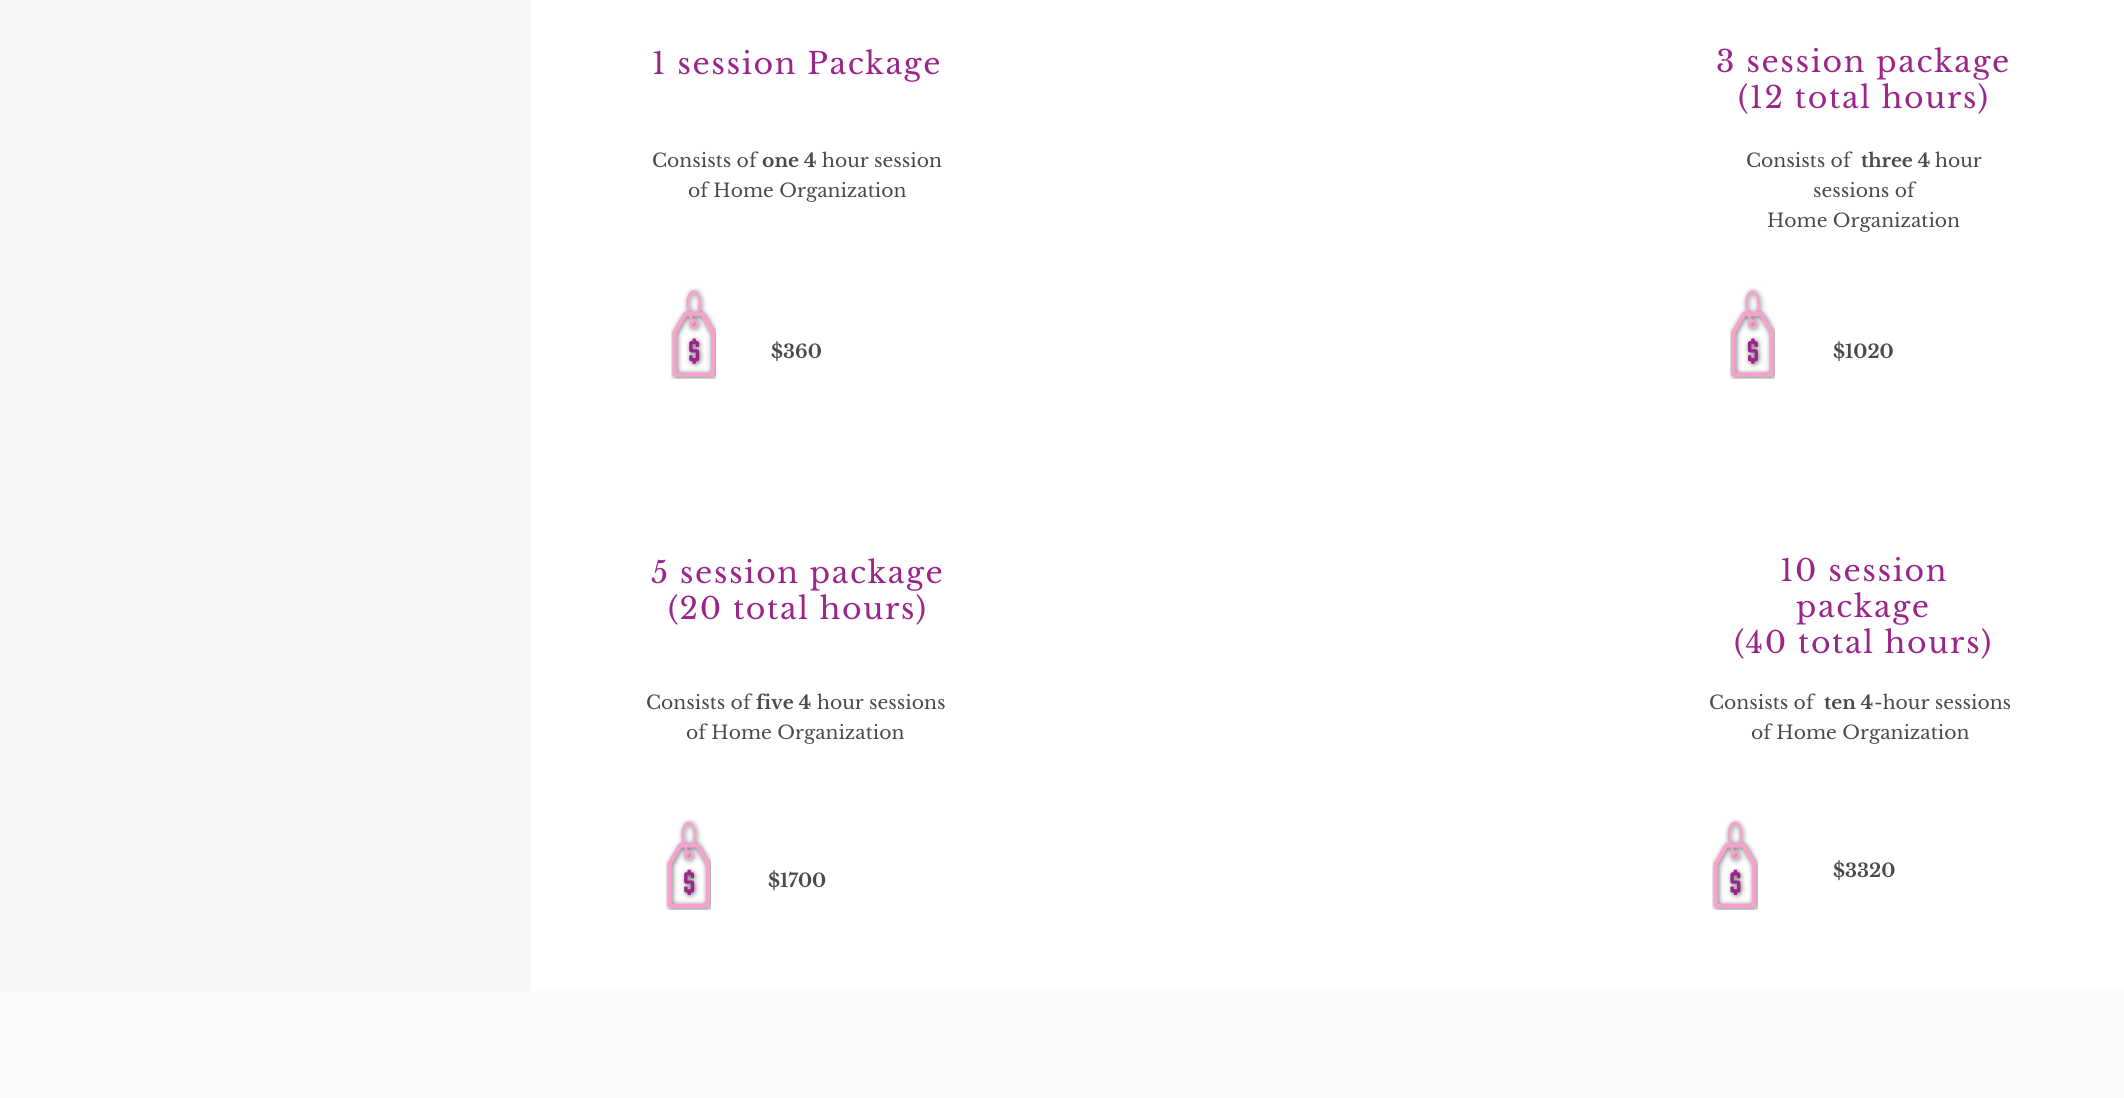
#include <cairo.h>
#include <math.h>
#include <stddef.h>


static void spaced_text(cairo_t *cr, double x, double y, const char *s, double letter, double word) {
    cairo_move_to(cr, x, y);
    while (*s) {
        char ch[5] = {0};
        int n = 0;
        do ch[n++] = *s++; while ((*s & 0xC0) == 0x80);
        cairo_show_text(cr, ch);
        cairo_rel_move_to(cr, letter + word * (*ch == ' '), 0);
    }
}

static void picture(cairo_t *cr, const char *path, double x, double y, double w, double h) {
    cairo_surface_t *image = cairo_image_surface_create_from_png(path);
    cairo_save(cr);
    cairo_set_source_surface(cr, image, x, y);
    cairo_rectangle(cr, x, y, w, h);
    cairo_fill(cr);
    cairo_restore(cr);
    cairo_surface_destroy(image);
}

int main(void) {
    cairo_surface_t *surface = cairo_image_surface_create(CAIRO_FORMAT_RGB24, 2124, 1098);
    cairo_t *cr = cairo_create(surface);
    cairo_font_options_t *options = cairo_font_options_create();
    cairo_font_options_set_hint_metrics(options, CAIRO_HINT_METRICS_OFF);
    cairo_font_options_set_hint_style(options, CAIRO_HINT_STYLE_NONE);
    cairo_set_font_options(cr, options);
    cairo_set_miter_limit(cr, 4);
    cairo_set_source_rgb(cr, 1, 1, 1);
    cairo_paint(cr);
    cairo_set_source_rgb(cr, 0.961, 0.961, 0.961);
    cairo_rectangle(cr, 0, 0, 531, 991);
    cairo_fill(cr);
    cairo_select_font_face(cr, "Libre Baskerville", CAIRO_FONT_SLANT_NORMAL, CAIRO_FONT_WEIGHT_NORMAL);
    cairo_set_font_size(cr, 30);
    cairo_set_source_rgb(cr, 0.612, 0.145, 0.549);
    spaced_text(cr, 652, 74, "1 session Package", 1.6, 0);
    cairo_set_font_size(cr, 18.75);
    cairo_set_source_rgb(cr, 0.29, 0.29, 0.29);
    cairo_move_to(cr, 652, 167);
    cairo_show_text(cr, "Consists of");
    cairo_select_font_face(cr, "Libre Baskerville", CAIRO_FONT_SLANT_NORMAL, CAIRO_FONT_WEIGHT_BOLD);
    cairo_move_to(cr, 762, 167);
    cairo_show_text(cr, "one 4");
    cairo_select_font_face(cr, "Libre Baskerville", CAIRO_FONT_SLANT_NORMAL, CAIRO_FONT_WEIGHT_NORMAL);
    cairo_move_to(cr, 822, 167);
    cairo_show_text(cr, "hour session");
    cairo_move_to(cr, 688, 197);
    cairo_show_text(cr, "of Home Organization");
    picture(cr, "img1.png", 671, 287, 45, 92);
    cairo_select_font_face(cr, "Libre Baskerville", CAIRO_FONT_SLANT_NORMAL, CAIRO_FONT_WEIGHT_BOLD);
    cairo_move_to(cr, 771, 358);
    cairo_show_text(cr, "$360");
    cairo_select_font_face(cr, "Libre Baskerville", CAIRO_FONT_SLANT_NORMAL, CAIRO_FONT_WEIGHT_NORMAL);
    cairo_set_font_size(cr, 30);
    cairo_set_source_rgb(cr, 0.612, 0.145, 0.549);
    spaced_text(cr, 1716, 72, "3 session package", 1.6, 0);
    spaced_text(cr, 1738, 108, "(12 total hours)", 1.6, 0);
    cairo_set_font_size(cr, 18.75);
    cairo_set_source_rgb(cr, 0.29, 0.29, 0.29);
    cairo_move_to(cr, 1746, 167);
    cairo_show_text(cr, "Consists of");
    cairo_select_font_face(cr, "Libre Baskerville", CAIRO_FONT_SLANT_NORMAL, CAIRO_FONT_WEIGHT_BOLD);
    cairo_move_to(cr, 1861, 167);
    cairo_show_text(cr, "three 4");
    cairo_select_font_face(cr, "Libre Baskerville", CAIRO_FONT_SLANT_NORMAL, CAIRO_FONT_WEIGHT_NORMAL);
    cairo_move_to(cr, 1935, 167);
    cairo_show_text(cr, "hour");
    cairo_move_to(cr, 1813, 197);
    cairo_show_text(cr, "sessions of");
    cairo_move_to(cr, 1767, 227);
    cairo_show_text(cr, "Home Organization");
    picture(cr, "img2.png", 1730, 287, 45, 92);
    cairo_select_font_face(cr, "Libre Baskerville", CAIRO_FONT_SLANT_NORMAL, CAIRO_FONT_WEIGHT_BOLD);
    cairo_move_to(cr, 1833, 358);
    cairo_show_text(cr, "$1020");
    cairo_select_font_face(cr, "Libre Baskerville", CAIRO_FONT_SLANT_NORMAL, CAIRO_FONT_WEIGHT_NORMAL);
    cairo_set_font_size(cr, 30);
    cairo_set_source_rgb(cr, 0.612, 0.145, 0.549);
    spaced_text(cr, 651, 583, "5 session package", 1.6, 0);
    spaced_text(cr, 668, 619, "(20 total hours)", 1.6, 0);
    cairo_set_font_size(cr, 18.75);
    cairo_set_source_rgb(cr, 0.29, 0.29, 0.29);
    cairo_move_to(cr, 646, 709);
    cairo_show_text(cr, "Consists of");
    cairo_select_font_face(cr, "Libre Baskerville", CAIRO_FONT_SLANT_NORMAL, CAIRO_FONT_WEIGHT_BOLD);
    cairo_move_to(cr, 756, 709);
    cairo_show_text(cr, "five 4");
    cairo_select_font_face(cr, "Libre Baskerville", CAIRO_FONT_SLANT_NORMAL, CAIRO_FONT_WEIGHT_NORMAL);
    cairo_move_to(cr, 817, 709);
    cairo_show_text(cr, "hour sessions");
    cairo_move_to(cr, 686, 739);
    cairo_show_text(cr, "of Home Organization");
    picture(cr, "img3.png", 666, 819, 45, 91);
    cairo_select_font_face(cr, "Libre Baskerville", CAIRO_FONT_SLANT_NORMAL, CAIRO_FONT_WEIGHT_BOLD);
    cairo_move_to(cr, 768, 887);
    cairo_show_text(cr, "$1700");
    cairo_select_font_face(cr, "Libre Baskerville", CAIRO_FONT_SLANT_NORMAL, CAIRO_FONT_WEIGHT_NORMAL);
    cairo_set_font_size(cr, 30);
    cairo_set_source_rgb(cr, 0.612, 0.145, 0.549);
    spaced_text(cr, 1780, 581, "10 session", 1.6, 0);
    spaced_text(cr, 1796, 617, "package", 1.6, 0);
    spaced_text(cr, 1734, 653, "(40 total hours)", 1.6, 0);
    cairo_set_font_size(cr, 18.75);
    cairo_set_source_rgb(cr, 0.29, 0.29, 0.29);
    cairo_move_to(cr, 1709, 709);
    cairo_show_text(cr, "Consists of");
    cairo_select_font_face(cr, "Libre Baskerville", CAIRO_FONT_SLANT_NORMAL, CAIRO_FONT_WEIGHT_BOLD);
    cairo_move_to(cr, 1824, 709);
    cairo_show_text(cr, "ten 4");
    cairo_select_font_face(cr, "Libre Baskerville", CAIRO_FONT_SLANT_NORMAL, CAIRO_FONT_WEIGHT_NORMAL);
    cairo_move_to(cr, 1874, 709);
    cairo_show_text(cr, "-hour sessions");
    cairo_move_to(cr, 1751, 739);
    cairo_show_text(cr, "of Home Organization");
    picture(cr, "img4.png", 1712, 819, 46, 91);
    cairo_select_font_face(cr, "Libre Baskerville", CAIRO_FONT_SLANT_NORMAL, CAIRO_FONT_WEIGHT_BOLD);
    cairo_move_to(cr, 1833, 877);
    cairo_show_text(cr, "$3320");
    cairo_set_source_rgb(cr, 0.98, 0.98, 0.98);
    cairo_rectangle(cr, 0, 991, 2124, 107);
    cairo_fill(cr);
    cairo_surface_write_to_png(surface, "page.png");
    cairo_font_options_destroy(options);
    cairo_destroy(cr);
    cairo_surface_destroy(surface);
    return 0;
}
